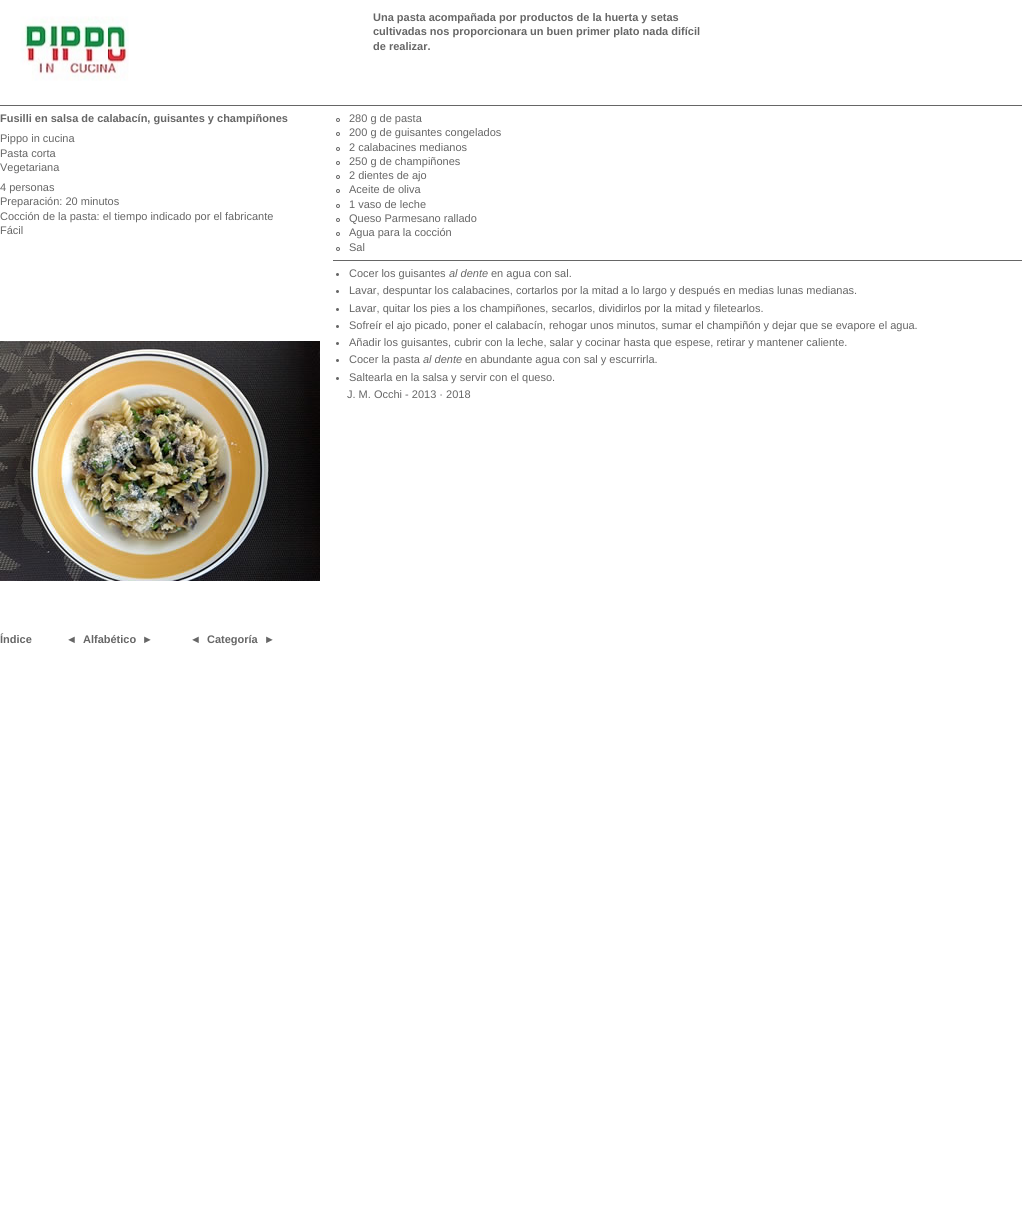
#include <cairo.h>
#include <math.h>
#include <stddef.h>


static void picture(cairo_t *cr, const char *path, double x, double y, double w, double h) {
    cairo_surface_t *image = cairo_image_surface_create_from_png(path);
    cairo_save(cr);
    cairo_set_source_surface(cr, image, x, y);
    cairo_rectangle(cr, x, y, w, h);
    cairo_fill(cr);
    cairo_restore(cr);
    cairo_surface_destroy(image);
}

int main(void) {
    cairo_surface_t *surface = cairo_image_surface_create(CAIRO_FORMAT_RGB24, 1022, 1212);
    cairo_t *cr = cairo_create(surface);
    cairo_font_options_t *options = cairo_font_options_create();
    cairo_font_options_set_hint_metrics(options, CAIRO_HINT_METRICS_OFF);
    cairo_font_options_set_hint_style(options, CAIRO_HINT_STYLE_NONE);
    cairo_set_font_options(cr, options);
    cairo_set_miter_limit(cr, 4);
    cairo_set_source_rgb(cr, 1, 1, 1);
    cairo_paint(cr);
    cairo_set_source_rgb(cr, 0.4, 0.4, 0.4);
    cairo_rectangle(cr, 0, 105, 1022, 1);
    cairo_fill(cr);
    picture(cr, "img1.png", 20, 16, 109, 65);
    cairo_select_font_face(cr, "Liberation Sans", CAIRO_FONT_SLANT_NORMAL, CAIRO_FONT_WEIGHT_BOLD);
    cairo_set_font_size(cr, 11);
    cairo_move_to(cr, 373, 21);
    cairo_show_text(cr, "Una pasta acompañada por productos de la huerta y setas");
    cairo_move_to(cr, 373, 35);
    cairo_show_text(cr, "cultivadas nos proporcionara un buen primer plato nada difícil");
    cairo_move_to(cr, 373, 50);
    cairo_show_text(cr, "de realizar.");
    cairo_move_to(cr, 0, 122);
    cairo_show_text(cr, "Fusilli en salsa de calabacín, guisantes y champiñones");
    cairo_select_font_face(cr, "Liberation Sans", CAIRO_FONT_SLANT_NORMAL, CAIRO_FONT_WEIGHT_NORMAL);
    cairo_move_to(cr, 0, 142);
    cairo_show_text(cr, "Pippo in cucina");
    cairo_move_to(cr, 0, 157);
    cairo_show_text(cr, "Pasta corta");
    cairo_move_to(cr, 0, 171);
    cairo_show_text(cr, "Vegetariana");
    cairo_move_to(cr, 0, 191);
    cairo_show_text(cr, "4 personas");
    cairo_move_to(cr, 0, 205);
    cairo_show_text(cr, "Preparación: 20 minutos");
    cairo_move_to(cr, 0, 220);
    cairo_show_text(cr, "Cocción de la pasta: el tiempo indicado por el fabricante");
    cairo_move_to(cr, 0, 234);
    cairo_show_text(cr, "Fácil");
    picture(cr, "img2.png", 0, 341, 320, 240);
    cairo_select_font_face(cr, "Liberation Sans", CAIRO_FONT_SLANT_NORMAL, CAIRO_FONT_WEIGHT_BOLD);
    cairo_move_to(cr, 0, 643);
    cairo_show_text(cr, "Índice");
    cairo_move_to(cr, 66, 643);
    cairo_show_text(cr, "◄");
    cairo_move_to(cr, 83, 643);
    cairo_show_text(cr, "Alfabético");
    cairo_move_to(cr, 142, 643);
    cairo_show_text(cr, "►");
    cairo_move_to(cr, 190, 643);
    cairo_show_text(cr, "◄");
    cairo_move_to(cr, 207, 643);
    cairo_show_text(cr, "Categoría");
    cairo_move_to(cr, 264, 643);
    cairo_show_text(cr, "►");
    cairo_new_path(cr);
    cairo_arc(cr, 338, 120, 1.5, 0, 2 * M_PI);
    cairo_set_line_width(cr, 1);
    cairo_stroke(cr);
    cairo_select_font_face(cr, "Liberation Sans", CAIRO_FONT_SLANT_NORMAL, CAIRO_FONT_WEIGHT_NORMAL);
    cairo_move_to(cr, 349, 122);
    cairo_show_text(cr, "280 g de pasta");
    cairo_new_path(cr);
    cairo_arc(cr, 338, 134, 1.5, 0, 2 * M_PI);
    cairo_stroke(cr);
    cairo_move_to(cr, 349, 136);
    cairo_show_text(cr, "200 g de guisantes congelados");
    cairo_new_path(cr);
    cairo_arc(cr, 338, 149, 1.5, 0, 2 * M_PI);
    cairo_stroke(cr);
    cairo_move_to(cr, 349, 151);
    cairo_show_text(cr, "2 calabacines medianos");
    cairo_new_path(cr);
    cairo_arc(cr, 338, 163, 1.5, 0, 2 * M_PI);
    cairo_stroke(cr);
    cairo_move_to(cr, 349, 165);
    cairo_show_text(cr, "250 g de champiñones");
    cairo_new_path(cr);
    cairo_arc(cr, 338, 177, 1.5, 0, 2 * M_PI);
    cairo_stroke(cr);
    cairo_move_to(cr, 349, 179);
    cairo_show_text(cr, "2 dientes de ajo");
    cairo_new_path(cr);
    cairo_arc(cr, 338, 191, 1.5, 0, 2 * M_PI);
    cairo_stroke(cr);
    cairo_move_to(cr, 349, 193);
    cairo_show_text(cr, "Aceite de oliva");
    cairo_new_path(cr);
    cairo_arc(cr, 338, 206, 1.5, 0, 2 * M_PI);
    cairo_stroke(cr);
    cairo_move_to(cr, 349, 208);
    cairo_show_text(cr, "1 vaso de leche");
    cairo_new_path(cr);
    cairo_arc(cr, 338, 220, 1.5, 0, 2 * M_PI);
    cairo_stroke(cr);
    cairo_move_to(cr, 349, 222);
    cairo_show_text(cr, "Queso Parmesano rallado");
    cairo_new_path(cr);
    cairo_arc(cr, 338, 234, 1.5, 0, 2 * M_PI);
    cairo_stroke(cr);
    cairo_move_to(cr, 349, 236);
    cairo_show_text(cr, "Agua para la cocción");
    cairo_new_path(cr);
    cairo_arc(cr, 338, 249, 1.5, 0, 2 * M_PI);
    cairo_stroke(cr);
    cairo_move_to(cr, 349, 251);
    cairo_show_text(cr, "Sal");
    cairo_rectangle(cr, 333, 260, 689, 1);
    cairo_fill(cr);
    cairo_arc(cr, 337.5, 274.5, 1.5, 0, 2 * M_PI);
    cairo_fill(cr);
    cairo_move_to(cr, 349, 277);
    cairo_show_text(cr, "Cocer los guisantes");
    cairo_select_font_face(cr, "Liberation Sans", CAIRO_FONT_SLANT_ITALIC, CAIRO_FONT_WEIGHT_NORMAL);
    cairo_move_to(cr, 449, 277);
    cairo_show_text(cr, "al dente");
    cairo_select_font_face(cr, "Liberation Sans", CAIRO_FONT_SLANT_NORMAL, CAIRO_FONT_WEIGHT_NORMAL);
    cairo_move_to(cr, 491, 277);
    cairo_show_text(cr, "en agua con sal.");
    cairo_new_path(cr);
    cairo_arc(cr, 337.5, 291.5, 1.5, 0, 2 * M_PI);
    cairo_fill(cr);
    cairo_move_to(cr, 349, 294);
    cairo_show_text(cr, "Lavar, despuntar los calabacines, cortarlos por la mitad a lo largo y después en medias lunas medianas.");
    cairo_new_path(cr);
    cairo_arc(cr, 337.5, 309.5, 1.5, 0, 2 * M_PI);
    cairo_fill(cr);
    cairo_move_to(cr, 349, 312);
    cairo_show_text(cr, "Lavar, quitar los pies a los champiñones, secarlos, dividirlos por la mitad y filetearlos.");
    cairo_new_path(cr);
    cairo_arc(cr, 337.5, 326.5, 1.5, 0, 2 * M_PI);
    cairo_fill(cr);
    cairo_move_to(cr, 349, 329);
    cairo_show_text(cr, "Sofreír el ajo picado, poner el calabacín, rehogar unos minutos, sumar el champiñón y dejar que se evapore el agua.");
    cairo_new_path(cr);
    cairo_arc(cr, 337.5, 343.5, 1.5, 0, 2 * M_PI);
    cairo_fill(cr);
    cairo_move_to(cr, 349, 346);
    cairo_show_text(cr, "Añadir los guisantes, cubrir con la leche, salar y cocinar hasta que espese, retirar y mantener caliente.");
    cairo_new_path(cr);
    cairo_arc(cr, 337.5, 360.5, 1.5, 0, 2 * M_PI);
    cairo_fill(cr);
    cairo_move_to(cr, 349, 363);
    cairo_show_text(cr, "Cocer la pasta");
    cairo_select_font_face(cr, "Liberation Sans", CAIRO_FONT_SLANT_ITALIC, CAIRO_FONT_WEIGHT_NORMAL);
    cairo_move_to(cr, 423, 363);
    cairo_show_text(cr, "al dente");
    cairo_select_font_face(cr, "Liberation Sans", CAIRO_FONT_SLANT_NORMAL, CAIRO_FONT_WEIGHT_NORMAL);
    cairo_move_to(cr, 465, 363);
    cairo_show_text(cr, "en abundante agua con sal y escurrirla.");
    cairo_new_path(cr);
    cairo_arc(cr, 337.5, 378.5, 1.5, 0, 2 * M_PI);
    cairo_fill(cr);
    cairo_move_to(cr, 349, 381);
    cairo_show_text(cr, "Saltearla en la salsa y servir con el queso.");
    cairo_move_to(cr, 347, 398);
    cairo_show_text(cr, "J. M. Occhi - 2013 · 2018");
    cairo_surface_write_to_png(surface, "page.png");
    cairo_font_options_destroy(options);
    cairo_destroy(cr);
    cairo_surface_destroy(surface);
    return 0;
}
